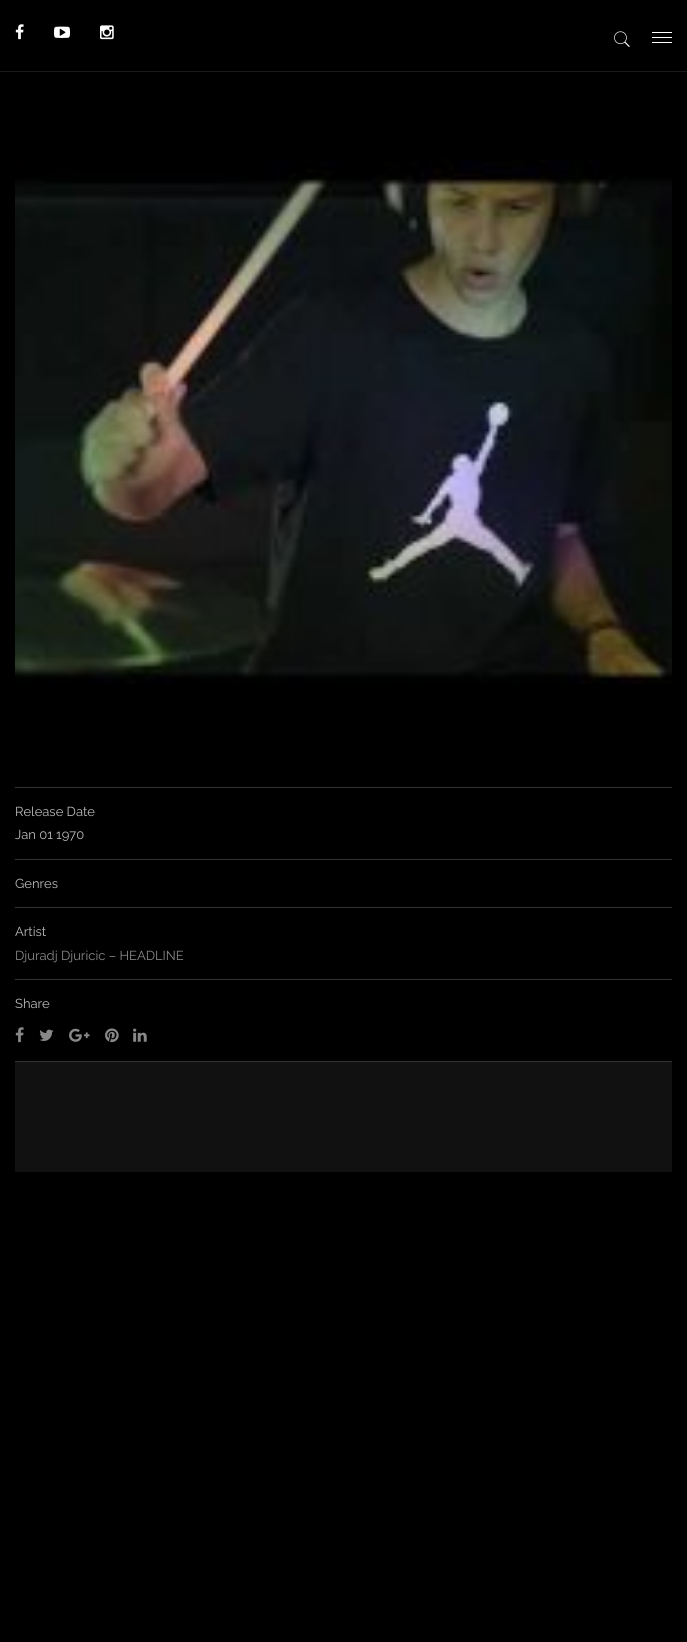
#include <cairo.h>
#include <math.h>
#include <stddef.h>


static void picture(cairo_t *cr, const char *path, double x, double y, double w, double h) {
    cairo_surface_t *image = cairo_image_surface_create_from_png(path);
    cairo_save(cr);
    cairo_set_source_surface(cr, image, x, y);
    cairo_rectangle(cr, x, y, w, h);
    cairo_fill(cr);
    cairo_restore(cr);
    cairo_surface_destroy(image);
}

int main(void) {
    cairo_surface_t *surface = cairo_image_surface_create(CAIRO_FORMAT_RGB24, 687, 1642);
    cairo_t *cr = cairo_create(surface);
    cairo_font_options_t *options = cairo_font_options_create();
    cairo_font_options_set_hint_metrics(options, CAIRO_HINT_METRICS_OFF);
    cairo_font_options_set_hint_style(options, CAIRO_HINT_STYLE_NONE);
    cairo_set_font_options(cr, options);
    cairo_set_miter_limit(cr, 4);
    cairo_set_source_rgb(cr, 0, 0, 0);
    cairo_paint(cr);
    cairo_set_source_rgb(cr, 0.102, 0.102, 0.102);
    cairo_rectangle(cr, 0, 71, 687, 1);
    cairo_fill(cr);
    picture(cr, "img1.png", 15, 24, 9, 16);
    picture(cr, "img2.png", 54, 26, 16, 12);
    picture(cr, "img3.png", 100, 25, 14, 15);
    picture(cr, "img4.png", 614, 31, 16, 16);
    cairo_set_source_rgb(cr, 1, 1, 1);
    cairo_rectangle(cr, 652, 32, 20, 1);
    cairo_fill(cr);
    cairo_rectangle(cr, 652, 37, 20, 1);
    cairo_fill(cr);
    cairo_rectangle(cr, 652, 42, 20, 1);
    cairo_fill(cr);
    picture(cr, "img5.png", 15, 159, 657, 525);
    cairo_set_source_rgb(cr, 0.2, 0.2, 0.2);
    cairo_rectangle(cr, 15, 787, 657, 1);
    cairo_fill(cr);
    cairo_rectangle(cr, 15, 859, 657, 1);
    cairo_fill(cr);
    cairo_select_font_face(cr, "Raleway", CAIRO_FONT_SLANT_NORMAL, CAIRO_FONT_WEIGHT_NORMAL);
    cairo_set_font_size(cr, 13);
    cairo_set_source_rgb(cr, 0.733, 0.733, 0.733);
    cairo_move_to(cr, 15, 816);
    cairo_show_text(cr, "Release Date");
    cairo_move_to(cr, 15, 839);
    cairo_show_text(cr, "Jan 01 1970");
    cairo_set_source_rgb(cr, 0.2, 0.2, 0.2);
    cairo_rectangle(cr, 15, 907, 657, 1);
    cairo_fill(cr);
    cairo_set_source_rgb(cr, 0.733, 0.733, 0.733);
    cairo_move_to(cr, 15, 888);
    cairo_show_text(cr, "Genres");
    cairo_set_source_rgb(cr, 0.2, 0.2, 0.2);
    cairo_rectangle(cr, 15, 979, 657, 1);
    cairo_fill(cr);
    cairo_set_source_rgb(cr, 0.733, 0.733, 0.733);
    cairo_move_to(cr, 15, 936);
    cairo_show_text(cr, "Artist");
    cairo_set_source_rgb(cr, 0.533, 0.533, 0.533);
    cairo_move_to(cr, 15, 960);
    cairo_show_text(cr, "Djuradj Djuricic – HEADLINE");
    cairo_set_source_rgb(cr, 0.2, 0.2, 0.2);
    cairo_rectangle(cr, 15, 1061, 657, 1);
    cairo_fill(cr);
    cairo_set_source_rgb(cr, 0.733, 0.733, 0.733);
    cairo_move_to(cr, 15, 1008);
    cairo_show_text(cr, "Share");
    picture(cr, "img6.png", 15, 1027, 9, 16);
    picture(cr, "img7.png", 39, 1029, 15, 12);
    picture(cr, "img8.png", 69, 1028, 21, 14);
    picture(cr, "img9.png", 105, 1028, 14, 15);
    picture(cr, "img10.png", 133, 1028, 14, 14);
    cairo_set_source_rgb(cr, 0.067, 0.067, 0.067);
    cairo_rectangle(cr, 15, 1062, 657, 110);
    cairo_fill(cr);
    cairo_surface_write_to_png(surface, "page.png");
    cairo_font_options_destroy(options);
    cairo_destroy(cr);
    cairo_surface_destroy(surface);
    return 0;
}
